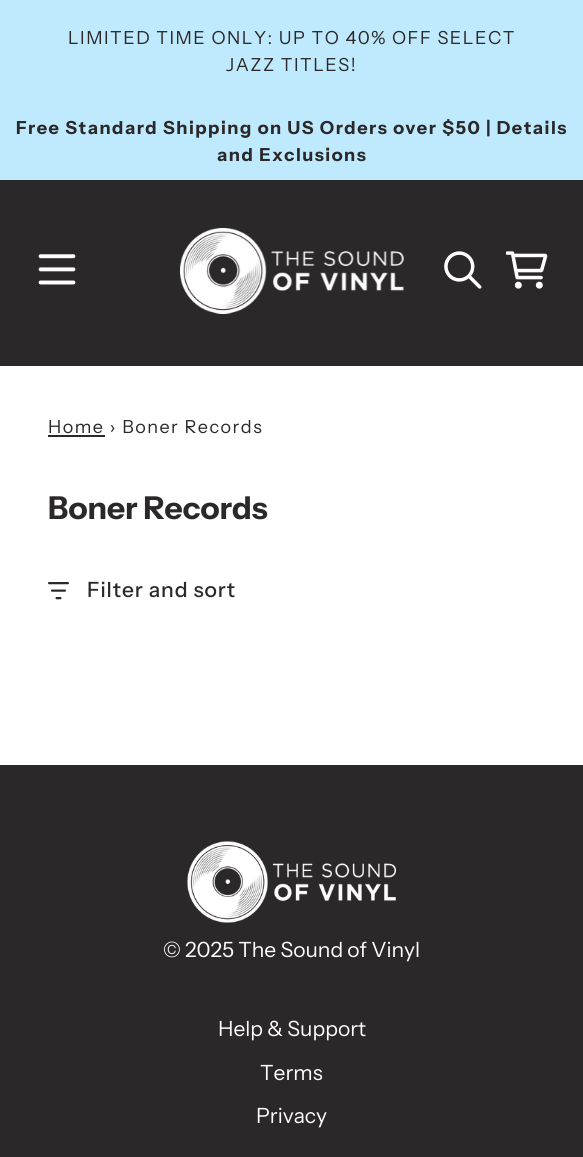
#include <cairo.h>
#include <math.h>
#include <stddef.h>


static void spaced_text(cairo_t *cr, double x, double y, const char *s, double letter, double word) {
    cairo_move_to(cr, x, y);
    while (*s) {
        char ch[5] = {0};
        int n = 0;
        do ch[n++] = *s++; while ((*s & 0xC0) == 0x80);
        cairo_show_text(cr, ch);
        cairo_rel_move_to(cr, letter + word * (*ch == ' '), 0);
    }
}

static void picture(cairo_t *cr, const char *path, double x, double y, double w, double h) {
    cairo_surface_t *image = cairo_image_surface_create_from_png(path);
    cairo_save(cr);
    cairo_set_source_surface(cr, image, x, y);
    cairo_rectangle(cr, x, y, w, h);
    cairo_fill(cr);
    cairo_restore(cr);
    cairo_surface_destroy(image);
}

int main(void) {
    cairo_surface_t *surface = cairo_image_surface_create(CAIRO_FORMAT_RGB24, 583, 1157);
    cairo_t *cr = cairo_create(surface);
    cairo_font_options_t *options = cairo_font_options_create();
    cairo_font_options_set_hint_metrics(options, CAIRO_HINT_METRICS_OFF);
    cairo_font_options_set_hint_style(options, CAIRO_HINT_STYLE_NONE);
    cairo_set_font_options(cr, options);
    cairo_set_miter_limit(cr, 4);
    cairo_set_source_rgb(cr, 1, 1, 1);
    cairo_paint(cr);
    cairo_set_source_rgb(cr, 0.749, 0.914, 0.992);
    cairo_rectangle(cr, 0, 0, 583, 180);
    cairo_fill(cr);
    cairo_select_font_face(cr, "Instrument Sans", CAIRO_FONT_SLANT_NORMAL, CAIRO_FONT_WEIGHT_NORMAL);
    cairo_set_font_size(cr, 18);
    cairo_set_source_rgb(cr, 0.165, 0.157, 0.157);
    spaced_text(cr, 68, 44, "LIMITED TIME ONLY: UP TO 40% OFF SELECT", 1.5, 0);
    spaced_text(cr, 226, 71, "JAZZ TITLES!", 1.5, 0);
    cairo_select_font_face(cr, "Instrument Sans", CAIRO_FONT_SLANT_NORMAL, CAIRO_FONT_WEIGHT_BOLD);
    spaced_text(cr, 16, 134, "Free Standard Shipping on US Orders over $50 | Details", 1.5, 0);
    spaced_text(cr, 217, 161, "and Exclusions", 1.5, 0);
    cairo_rectangle(cr, 0, 180, 583, 186);
    cairo_fill(cr);
    picture(cr, "img1.png", 38, 254, 38, 31);
    picture(cr, "img2.png", 180, 228, 224, 86);
    picture(cr, "img3.png", 444, 251, 38, 38);
    picture(cr, "img4.png", 506, 251, 42, 38);
    cairo_select_font_face(cr, "Instrument Sans", CAIRO_FONT_SLANT_NORMAL, CAIRO_FONT_WEIGHT_NORMAL);
    spaced_text(cr, 48, 433, "Home › Boner Records", 1.5, 0);
    cairo_rectangle(cr, 48, 435, 57, 2);
    cairo_fill(cr);
    cairo_select_font_face(cr, "Instrument Sans", CAIRO_FONT_SLANT_NORMAL, CAIRO_FONT_WEIGHT_BOLD);
    cairo_set_font_size(cr, 31.5);
    cairo_move_to(cr, 48, 519);
    cairo_show_text(cr, "Boner Records");
    picture(cr, "img5.png", 48, 582, 21, 18);
    cairo_select_font_face(cr, "Instrument Sans Medium", CAIRO_FONT_SLANT_NORMAL, CAIRO_FONT_WEIGHT_NORMAL);
    cairo_set_font_size(cr, 21);
    spaced_text(cr, 87, 597, "Filter and sort", 0.9, 0);
    cairo_rectangle(cr, 0, 765, 583, 392);
    cairo_fill(cr);
    picture(cr, "img6.png", 187, 841, 209, 82);
    cairo_select_font_face(cr, "Instrument Sans", CAIRO_FONT_SLANT_NORMAL, CAIRO_FONT_WEIGHT_NORMAL);
    cairo_set_source_rgb(cr, 1, 1, 1);
    cairo_move_to(cr, 163, 957);
    cairo_show_text(cr, "© 2025 The Sound of Vinyl");
    cairo_move_to(cr, 218, 1036);
    cairo_show_text(cr, "Help & Support");
    cairo_move_to(cr, 260, 1080);
    cairo_show_text(cr, "Terms");
    cairo_move_to(cr, 256, 1123);
    cairo_show_text(cr, "Privacy");
    cairo_surface_write_to_png(surface, "page.png");
    cairo_font_options_destroy(options);
    cairo_destroy(cr);
    cairo_surface_destroy(surface);
    return 0;
}
